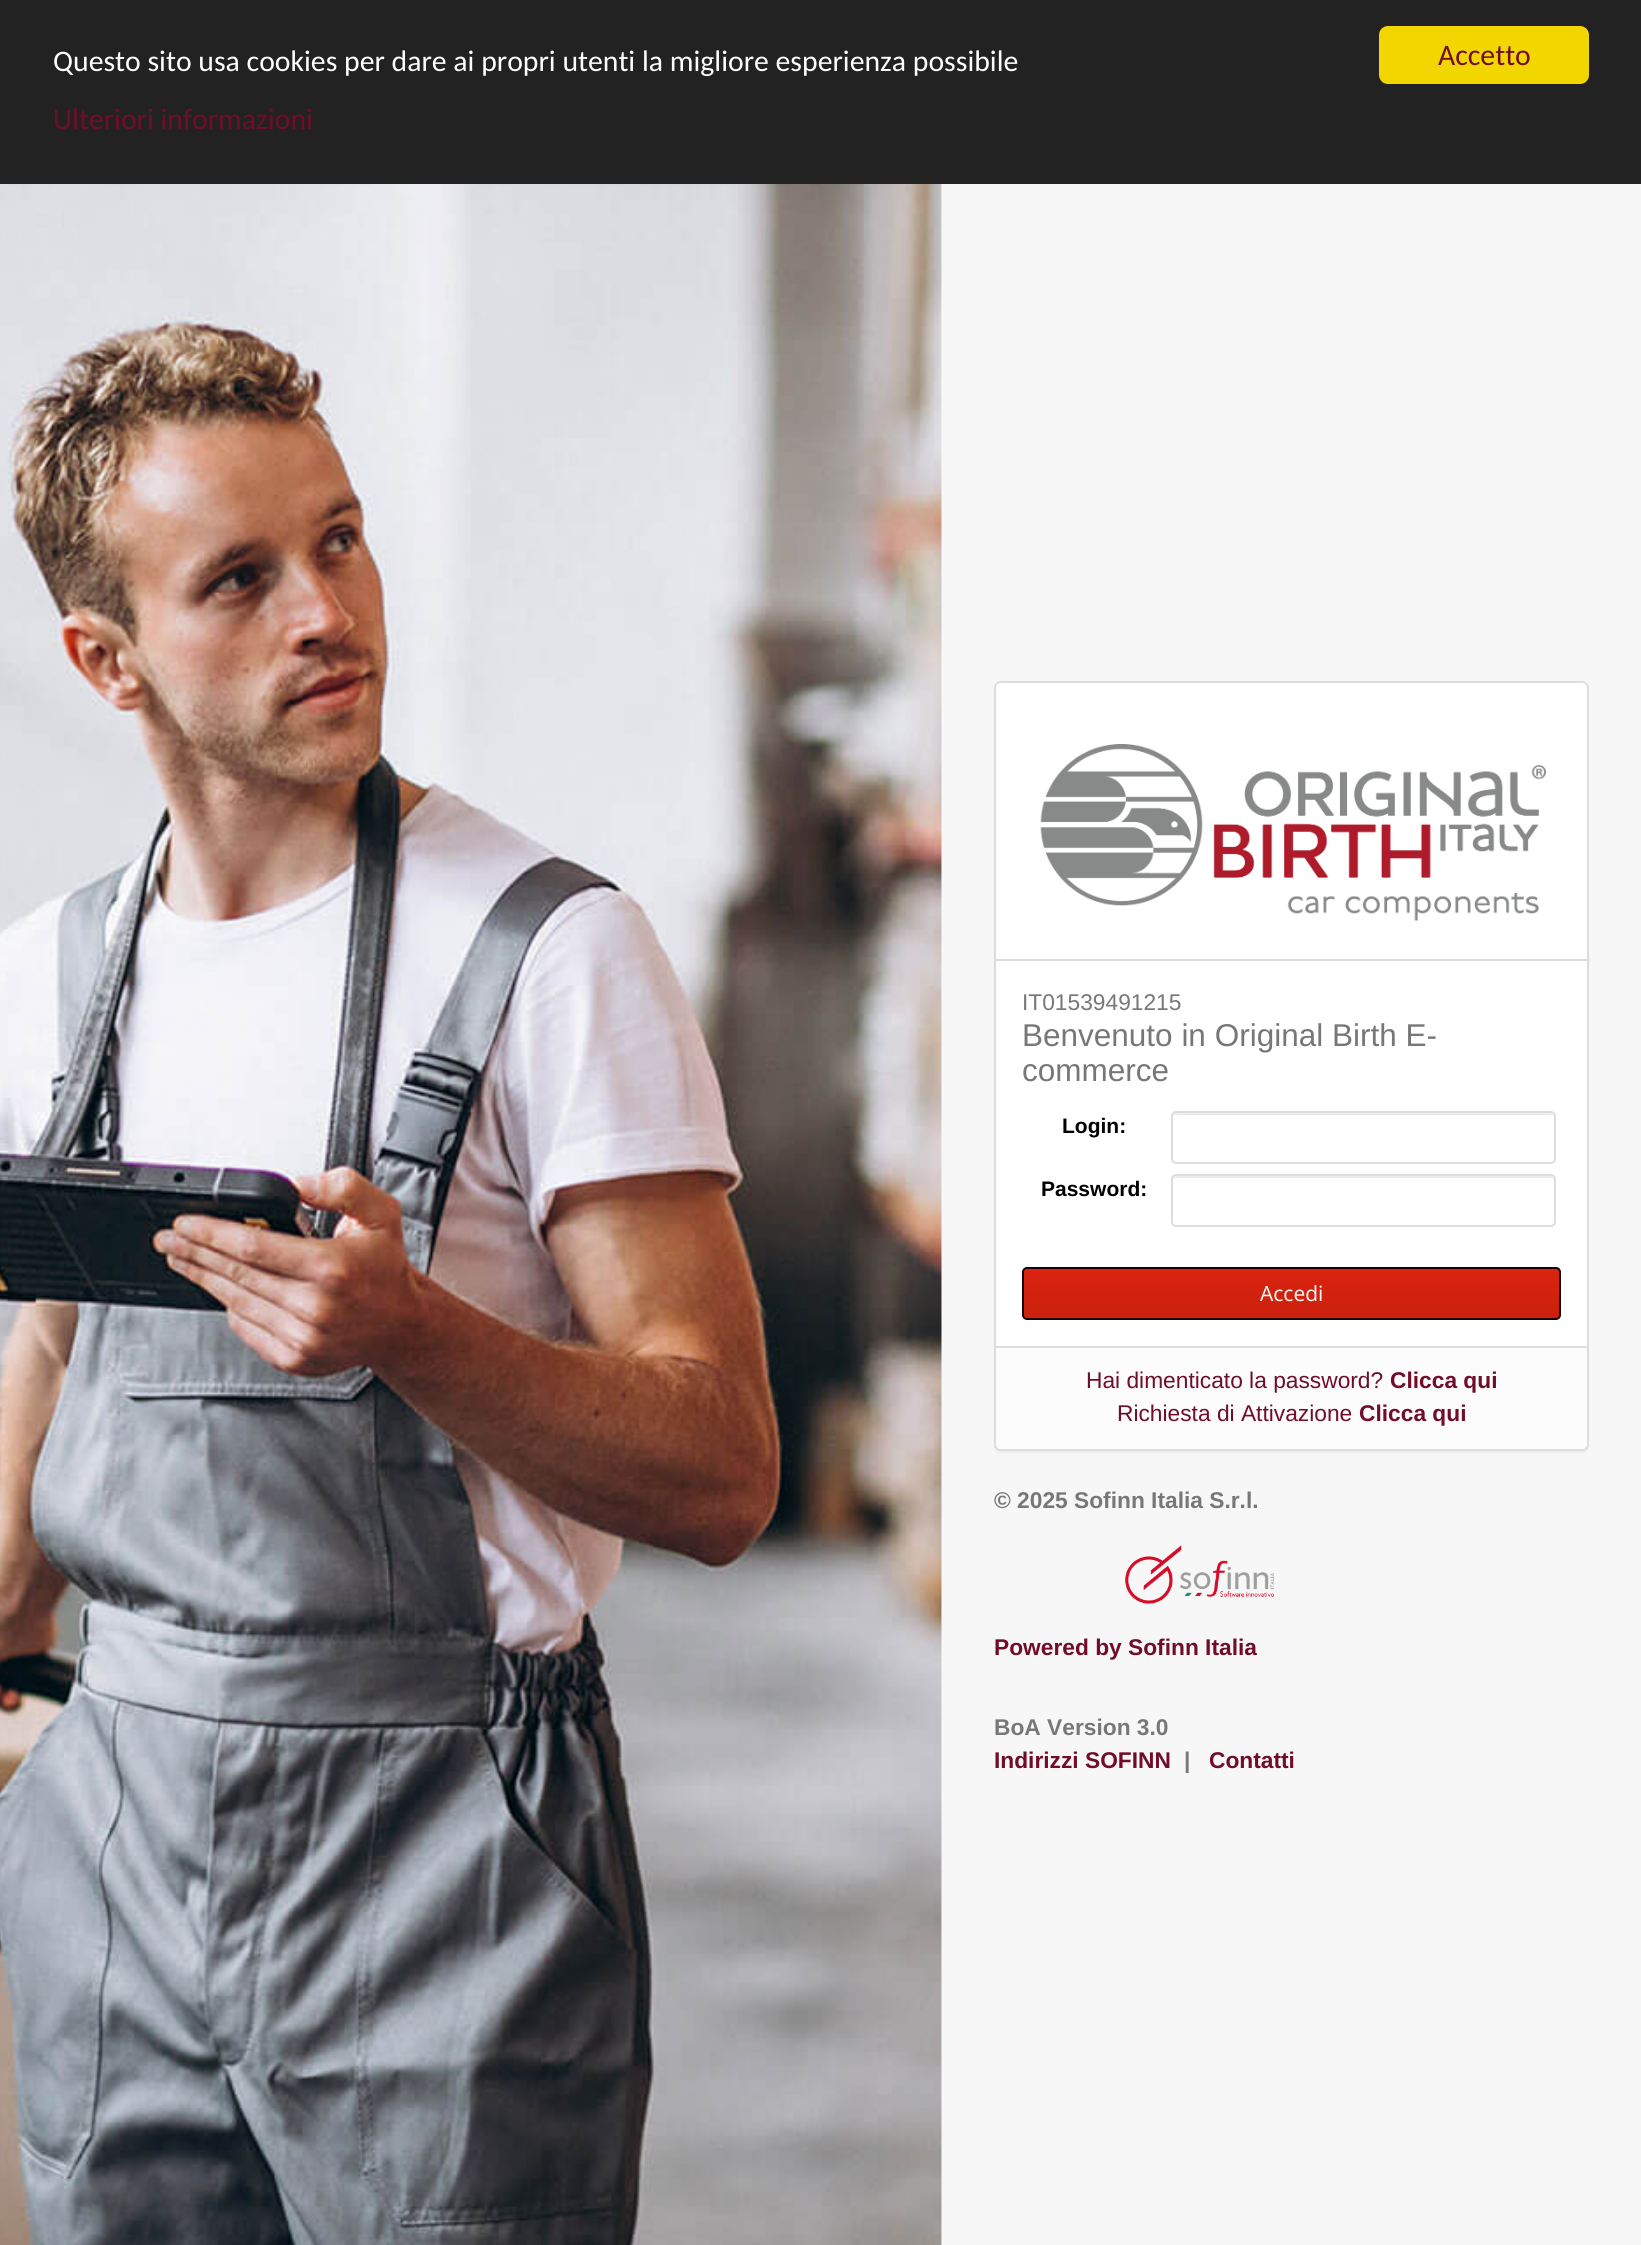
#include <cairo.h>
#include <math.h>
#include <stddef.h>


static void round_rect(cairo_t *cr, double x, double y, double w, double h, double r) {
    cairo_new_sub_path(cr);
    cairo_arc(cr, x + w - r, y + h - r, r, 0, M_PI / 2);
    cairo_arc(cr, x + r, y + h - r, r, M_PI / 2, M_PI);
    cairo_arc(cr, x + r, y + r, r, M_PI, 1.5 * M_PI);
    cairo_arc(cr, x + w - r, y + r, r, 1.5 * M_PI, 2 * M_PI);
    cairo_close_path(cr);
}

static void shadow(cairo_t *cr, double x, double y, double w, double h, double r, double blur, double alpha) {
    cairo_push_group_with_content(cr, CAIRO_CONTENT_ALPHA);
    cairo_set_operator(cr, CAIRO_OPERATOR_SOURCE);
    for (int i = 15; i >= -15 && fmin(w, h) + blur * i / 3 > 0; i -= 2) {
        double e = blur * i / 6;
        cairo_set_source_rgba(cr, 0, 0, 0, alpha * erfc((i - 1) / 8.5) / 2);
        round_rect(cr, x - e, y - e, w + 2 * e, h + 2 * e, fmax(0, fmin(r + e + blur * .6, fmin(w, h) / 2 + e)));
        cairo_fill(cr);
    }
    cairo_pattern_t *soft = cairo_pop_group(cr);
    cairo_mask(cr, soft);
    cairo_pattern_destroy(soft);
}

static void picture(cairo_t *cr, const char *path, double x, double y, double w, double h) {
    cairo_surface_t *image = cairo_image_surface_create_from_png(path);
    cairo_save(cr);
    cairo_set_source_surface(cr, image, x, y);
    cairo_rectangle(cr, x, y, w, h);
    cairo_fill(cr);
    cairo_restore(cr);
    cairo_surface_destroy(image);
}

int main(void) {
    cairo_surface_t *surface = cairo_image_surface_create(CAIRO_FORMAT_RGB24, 1641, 2245);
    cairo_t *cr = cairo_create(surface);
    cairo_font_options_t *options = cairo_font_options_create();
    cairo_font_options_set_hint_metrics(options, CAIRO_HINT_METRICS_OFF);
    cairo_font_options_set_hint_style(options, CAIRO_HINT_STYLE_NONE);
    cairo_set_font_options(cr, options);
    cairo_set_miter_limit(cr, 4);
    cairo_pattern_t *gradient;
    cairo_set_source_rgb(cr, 1, 1, 1);
    cairo_paint(cr);
    cairo_set_source_rgb(cr, 0.133, 0.133, 0.133);
    cairo_rectangle(cr, 0, 0, 1641, 184);
    cairo_fill(cr);
    cairo_select_font_face(cr, "Carlito", CAIRO_FONT_SLANT_NORMAL, CAIRO_FONT_WEIGHT_NORMAL);
    cairo_set_font_size(cr, 29.75);
    cairo_set_source_rgb(cr, 1, 1, 1);
    cairo_move_to(cr, 53, 71);
    cairo_show_text(cr, "Questo sito usa cookies per dare ai propri utenti la migliore esperienza possibile");
    cairo_set_source_rgb(cr, 0.945, 0.839, 0);
    round_rect(cr, 1379, 26, 210, 58, 9);
    cairo_fill(cr);
    cairo_set_source_rgb(cr, 0.443, 0.051, 0.157);
    cairo_move_to(cr, 1438, 65);
    cairo_show_text(cr, "Accetto");
    cairo_move_to(cr, 53, 129);
    cairo_show_text(cr, "Ulteriori informazioni");
    picture(cr, "img1.png", 0, 184, 942, 2061);
    cairo_set_source_rgb(cr, 0.965, 0.965, 0.965);
    cairo_rectangle(cr, 942, 184, 699, 2061);
    cairo_fill(cr);
    cairo_set_source_rgb(cr, 0, 0, 0);
    shadow(cr, 994, 683, 595, 770, 7, 1, 0.05);
    cairo_set_source_rgb(cr, 1, 1, 1);
    round_rect(cr, 995, 682, 593, 768, 6);
    cairo_fill_preserve(cr);
    cairo_set_source_rgb(cr, 0.867, 0.867, 0.867);
    cairo_stroke(cr);
    cairo_set_source_rgb(cr, 1, 1, 1);
    cairo_new_path(cr);
    cairo_move_to(cr, 1001, 683);
    cairo_line_to(cr, 1582, 683);
    cairo_curve_to(cr, 1585, 683, 1587, 685, 1587, 688);
    cairo_line_to(cr, 1587, 961);
    cairo_line_to(cr, 996, 961);
    cairo_line_to(cr, 996, 688);
    cairo_curve_to(cr, 996, 685, 998, 683, 1001, 683);
    cairo_close_path(cr);
    cairo_fill(cr);
    cairo_set_source_rgb(cr, 0.867, 0.867, 0.867);
    cairo_rectangle(cr, 996, 959, 591, 2);
    cairo_fill(cr);
    picture(cr, "img2.png", 1040, 744, 506, 178);
    cairo_select_font_face(cr, "Liberation Sans", CAIRO_FONT_SLANT_NORMAL, CAIRO_FONT_WEIGHT_NORMAL);
    cairo_set_font_size(cr, 22.75);
    cairo_set_source_rgb(cr, 0.467, 0.467, 0.467);
    cairo_move_to(cr, 1022, 1010);
    cairo_show_text(cr, "IT01539491215");
    cairo_set_font_size(cr, 31.5);
    cairo_move_to(cr, 1022, 1046);
    cairo_show_text(cr, "Benvenuto in Original Birth E-");
    cairo_move_to(cr, 1022, 1081);
    cairo_show_text(cr, "commerce");
    cairo_select_font_face(cr, "Liberation Sans", CAIRO_FONT_SLANT_NORMAL, CAIRO_FONT_WEIGHT_BOLD);
    cairo_set_font_size(cr, 21);
    cairo_set_source_rgb(cr, 0, 0, 0);
    cairo_move_to(cr, 1062, 1133);
    cairo_show_text(cr, "Login:");
    cairo_set_source_rgb(cr, 0.925, 0.925, 0.925);
    cairo_new_path(cr);
    cairo_move_to(cr, 1176, 1115);
    cairo_line_to(cr, 1550, 1115);
    cairo_curve_to(cr, 1552, 1115, 1554, 1116, 1554, 1118);
    cairo_line_to(cr, 1554, 1117);
    cairo_curve_to(cr, 1554, 1115, 1552, 1113, 1550, 1113);
    cairo_line_to(cr, 1177, 1113);
    cairo_curve_to(cr, 1175, 1113, 1174, 1114, 1173, 1116);
    cairo_close_path(cr);
    cairo_fill(cr);
    round_rect(cr, 1172, 1112, 383, 51, 4);
    cairo_set_source_rgb(cr, 0.867, 0.867, 0.867);
    cairo_stroke(cr);
    cairo_set_source_rgb(cr, 0, 0, 0);
    cairo_move_to(cr, 1041, 1196);
    cairo_show_text(cr, "Password:");
    cairo_set_source_rgb(cr, 0.925, 0.925, 0.925);
    cairo_new_path(cr);
    cairo_move_to(cr, 1176, 1178);
    cairo_line_to(cr, 1550, 1178);
    cairo_curve_to(cr, 1552, 1178, 1554, 1179, 1554, 1181);
    cairo_line_to(cr, 1554, 1180);
    cairo_curve_to(cr, 1554, 1178, 1552, 1176, 1550, 1176);
    cairo_line_to(cr, 1177, 1176);
    cairo_curve_to(cr, 1175, 1176, 1174, 1177, 1173, 1179);
    cairo_close_path(cr);
    cairo_fill(cr);
    round_rect(cr, 1172, 1175, 383, 51, 4);
    cairo_set_source_rgb(cr, 0.867, 0.867, 0.867);
    cairo_stroke(cr);
    gradient = cairo_pattern_create_linear(1292, 1269, 1292, 1318);
    cairo_pattern_add_color_stop_rgba(gradient, 0, 0.906, 0.145, 0.063, 1);
    cairo_pattern_add_color_stop_rgba(gradient, 0.06, 0.851, 0.137, 0.059, 1);
    cairo_pattern_add_color_stop_rgba(gradient, 1, 0.796, 0.129, 0.055, 1);
    cairo_set_source(cr, gradient);
    cairo_pattern_destroy(gradient);
    cairo_rectangle(cr, 1024, 1269, 535, 49);
    cairo_fill(cr);
    round_rect(cr, 1023, 1268, 537, 51, 4);
    cairo_set_source_rgb(cr, 0.086, 0.008, 0.031);
    cairo_stroke(cr);
    cairo_select_font_face(cr, "Open Sans", CAIRO_FONT_SLANT_NORMAL, CAIRO_FONT_WEIGHT_NORMAL);
    cairo_set_source_rgb(cr, 1, 1, 1);
    cairo_move_to(cr, 1260, 1301);
    cairo_show_text(cr, "Accedi");
    cairo_set_source_rgb(cr, 0.988, 0.988, 0.988);
    cairo_new_path(cr);
    cairo_move_to(cr, 996, 1346);
    cairo_line_to(cr, 1587, 1346);
    cairo_line_to(cr, 1587, 1444);
    cairo_curve_to(cr, 1587, 1447, 1585, 1449, 1582, 1449);
    cairo_line_to(cr, 1001, 1449);
    cairo_curve_to(cr, 998, 1449, 996, 1447, 996, 1444);
    cairo_close_path(cr);
    cairo_fill(cr);
    cairo_set_source_rgb(cr, 0.867, 0.867, 0.867);
    cairo_rectangle(cr, 996, 1346, 591, 2);
    cairo_fill(cr);
    cairo_select_font_face(cr, "Liberation Sans", CAIRO_FONT_SLANT_NORMAL, CAIRO_FONT_WEIGHT_NORMAL);
    cairo_set_font_size(cr, 22.75);
    cairo_set_source_rgb(cr, 0.443, 0.051, 0.157);
    cairo_move_to(cr, 1086, 1388);
    cairo_show_text(cr, "Hai dimenticato la password?");
    cairo_select_font_face(cr, "Liberation Sans", CAIRO_FONT_SLANT_NORMAL, CAIRO_FONT_WEIGHT_BOLD);
    cairo_move_to(cr, 1390, 1388);
    cairo_show_text(cr, "Clicca qui");
    cairo_select_font_face(cr, "Liberation Sans", CAIRO_FONT_SLANT_NORMAL, CAIRO_FONT_WEIGHT_NORMAL);
    cairo_move_to(cr, 1117, 1421);
    cairo_show_text(cr, "Richiesta di Attivazione");
    cairo_select_font_face(cr, "Liberation Sans", CAIRO_FONT_SLANT_NORMAL, CAIRO_FONT_WEIGHT_BOLD);
    cairo_move_to(cr, 1359, 1421);
    cairo_show_text(cr, "Clicca qui");
    cairo_set_source_rgb(cr, 0.467, 0.467, 0.467);
    cairo_move_to(cr, 994, 1508);
    cairo_show_text(cr, "© 2025 Sofinn Italia S.r.l.");
    picture(cr, "img3.png", 1125, 1545, 149, 59);
    cairo_set_source_rgb(cr, 0.443, 0.051, 0.157);
    cairo_move_to(cr, 994, 1655);
    cairo_show_text(cr, "Powered by Sofinn Italia");
    cairo_set_source_rgb(cr, 0.467, 0.467, 0.467);
    cairo_move_to(cr, 994, 1735);
    cairo_show_text(cr, "BoA Version 3.0");
    cairo_set_source_rgb(cr, 0.443, 0.051, 0.157);
    cairo_move_to(cr, 994, 1768);
    cairo_show_text(cr, "Indirizzi SOFINN");
    cairo_set_source_rgb(cr, 0.467, 0.467, 0.467);
    cairo_move_to(cr, 1184, 1768);
    cairo_show_text(cr, "|");
    cairo_set_source_rgb(cr, 0.443, 0.051, 0.157);
    cairo_move_to(cr, 1209, 1768);
    cairo_show_text(cr, "Contatti");
    cairo_surface_write_to_png(surface, "page.png");
    cairo_font_options_destroy(options);
    cairo_destroy(cr);
    cairo_surface_destroy(surface);
    return 0;
}
